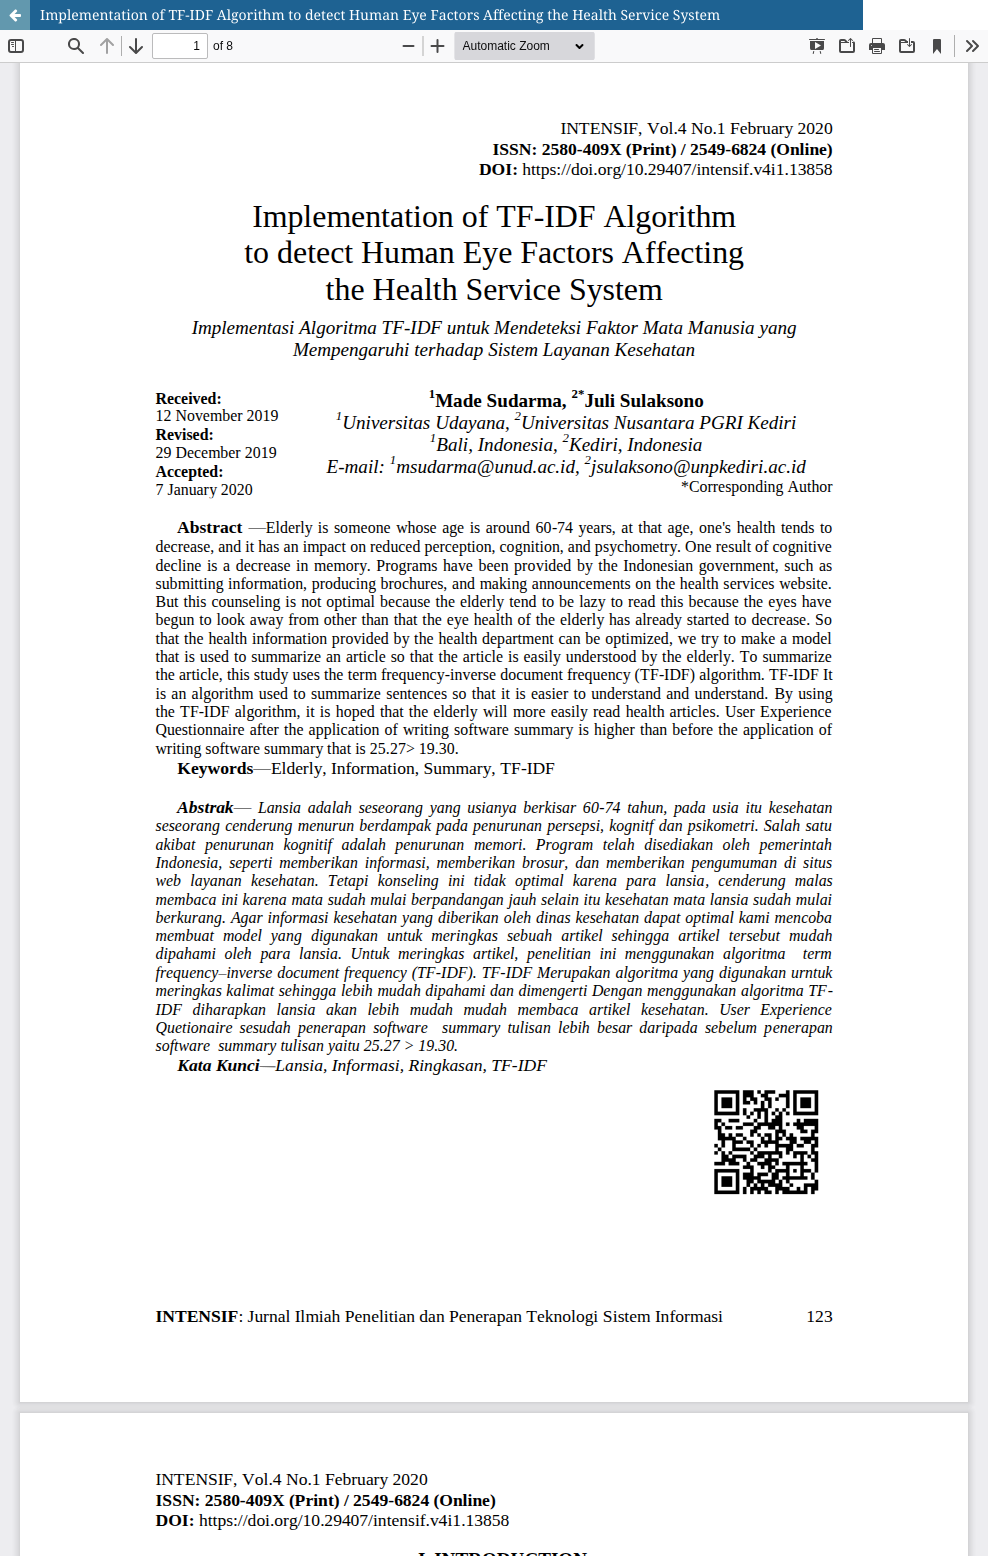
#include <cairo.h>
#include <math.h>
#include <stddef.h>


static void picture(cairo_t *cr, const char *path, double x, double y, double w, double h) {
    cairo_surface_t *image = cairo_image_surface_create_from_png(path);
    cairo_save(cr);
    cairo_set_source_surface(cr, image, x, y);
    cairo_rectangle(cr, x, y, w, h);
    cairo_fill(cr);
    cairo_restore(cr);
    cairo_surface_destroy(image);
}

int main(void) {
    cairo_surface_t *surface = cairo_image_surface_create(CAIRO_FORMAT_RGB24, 988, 1556);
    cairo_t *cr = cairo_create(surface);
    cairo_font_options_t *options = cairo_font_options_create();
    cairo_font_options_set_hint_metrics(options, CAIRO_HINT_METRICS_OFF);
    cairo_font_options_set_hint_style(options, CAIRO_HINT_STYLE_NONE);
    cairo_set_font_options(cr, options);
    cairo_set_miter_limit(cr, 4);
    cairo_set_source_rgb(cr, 1, 1, 1);
    cairo_paint(cr);
    cairo_set_source_rgb(cr, 0.118, 0.384, 0.573);
    cairo_rectangle(cr, 30, 0, 833, 30);
    cairo_fill(cr);
    cairo_set_source_rgb(cr, 0.384, 0.596, 0.682);
    cairo_rectangle(cr, 0, 0, 30, 30);
    cairo_fill(cr);
    picture(cr, "img1.png", 9, 9, 12, 13);
    cairo_select_font_face(cr, "Noto Serif", CAIRO_FONT_SLANT_NORMAL, CAIRO_FONT_WEIGHT_NORMAL);
    cairo_set_font_size(cr, 14);
    cairo_set_source_rgb(cr, 1, 1, 1);
    cairo_move_to(cr, 40, 20);
    cairo_show_text(cr, "Implementation of TF-IDF Algorithm to detect Human Eye Factors Affecting the Health Service System");
    picture(cr, "img2.png", 0, 30, 988, 1526);
    cairo_surface_write_to_png(surface, "page.png");
    cairo_font_options_destroy(options);
    cairo_destroy(cr);
    cairo_surface_destroy(surface);
    return 0;
}
